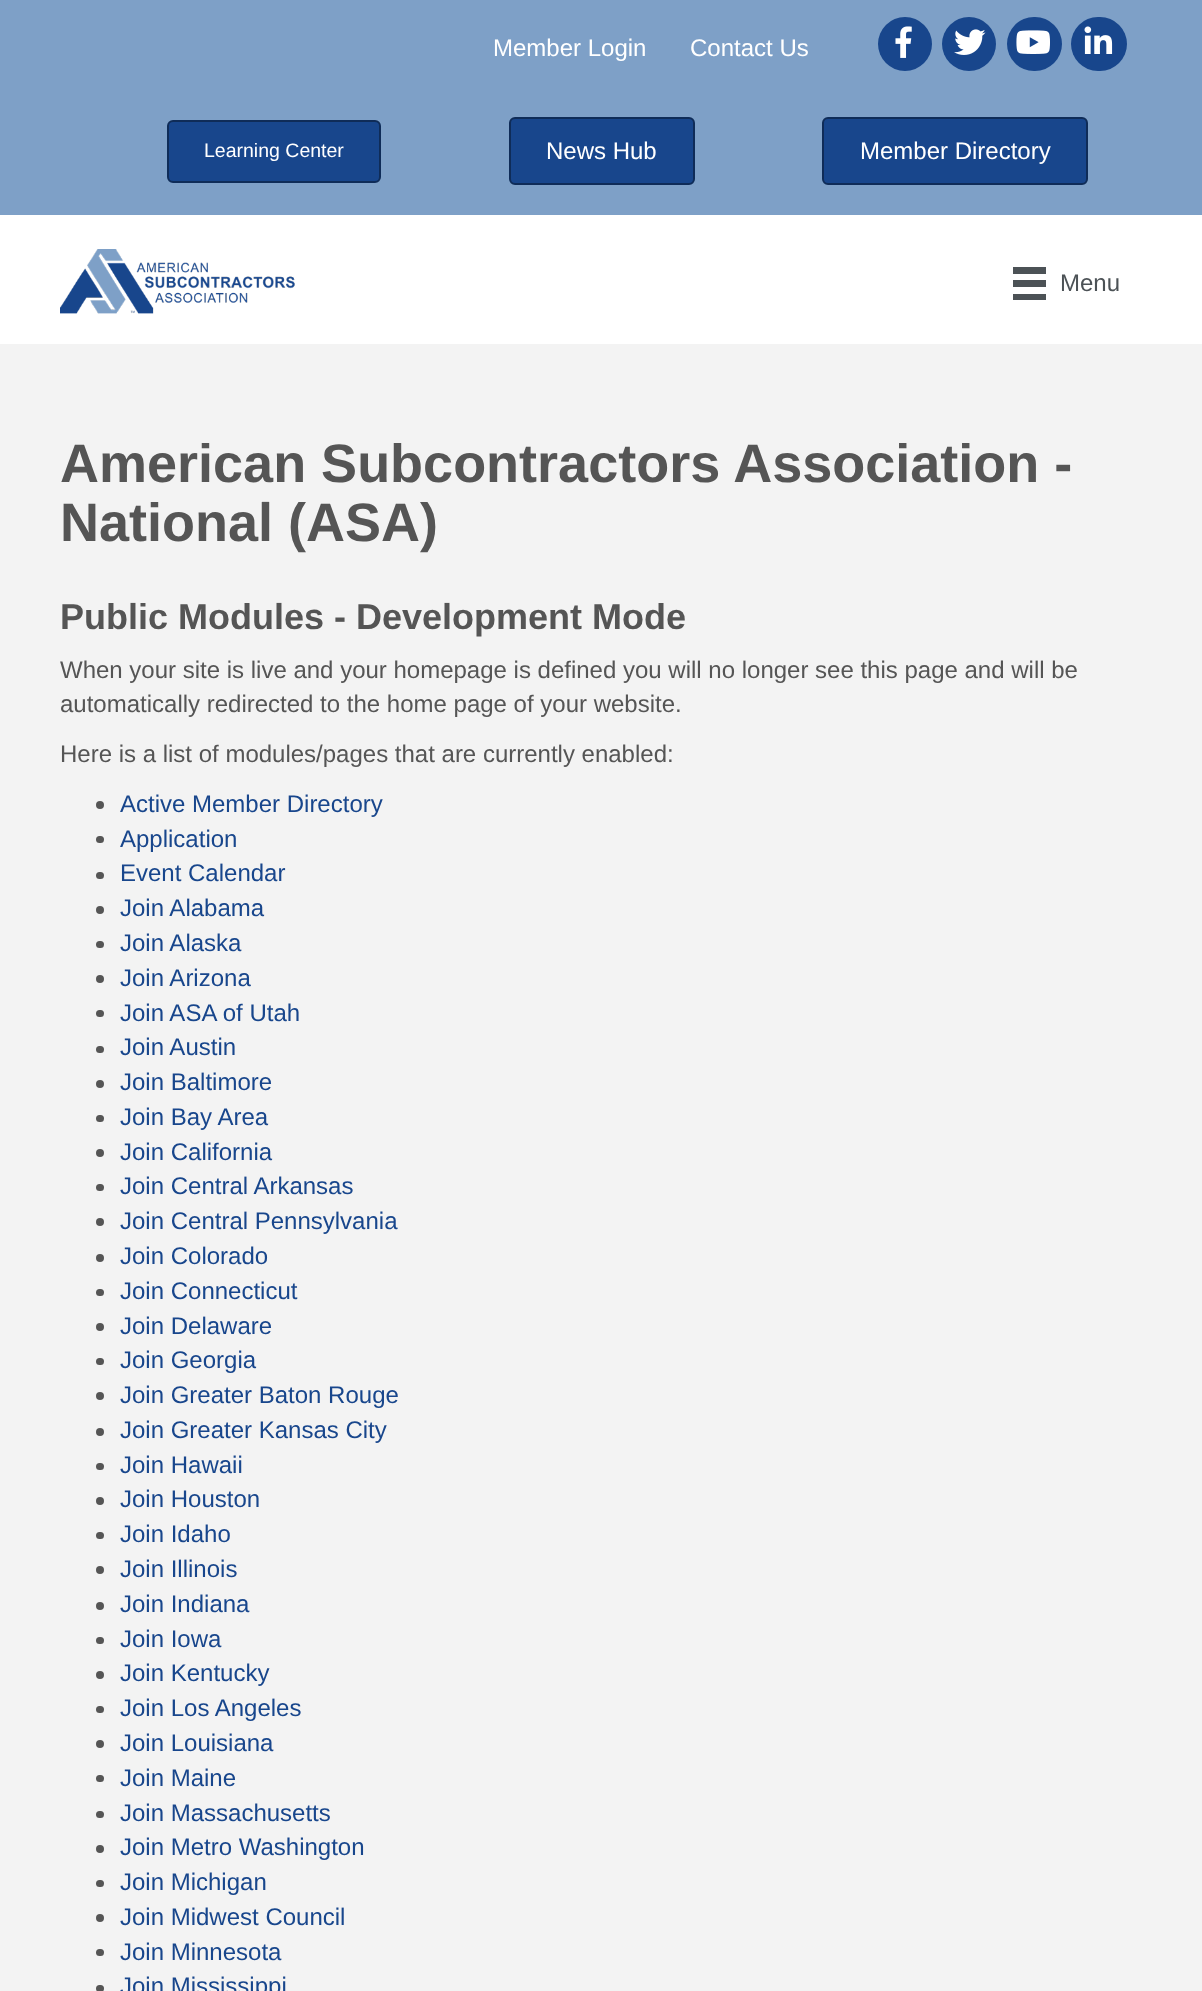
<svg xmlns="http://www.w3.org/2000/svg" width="1202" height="1991">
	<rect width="100%" height="100%" fill="#7EA0C7" />
	<g font-family="Liberation Sans" font-size="24" fill="#FFFFFF">
		<text x="493" y="56">Member Login</text>
		<text x="690" y="56">Contact Us</text>
	</g>
	<circle cx="905" cy="44" r="27" fill="#18468C" />
	<image x="895" y="26" width="17" height="32" href="assets/img1.png" />
	<circle cx="969" cy="44" r="27" fill="#18468C" />
	<image x="954" y="29" width="32" height="26" href="assets/img2.png" />
	<rect x="1007" y="17" width="55" height="54" rx="27" fill="#18468C" />
	<image x="1016" y="30" width="34" height="24" href="assets/img3.png" />
	<rect x="1071" y="17" width="56" height="54" rx="27" fill="#18468C" />
	<image x="1084" y="26" width="29" height="28" href="assets/img4.png" />
	<rect x="168" y="121" width="212" height="61" rx="5" fill="#18468C" stroke="#0F2C58" stroke-width="2" />
	<text x="204" y="157" font-family="Liberation Sans" font-size="19.5" fill="#FFFFFF">Learning Center</text>
	<rect x="510" y="118" width="184" height="66" rx="5" fill="#18468C" stroke="#0F2C58" stroke-width="2" />
	<text x="546" y="159" font-family="Liberation Sans" font-size="24" fill="#FFFFFF">News Hub</text>
	<rect x="823" y="118" width="264" height="66" rx="5" fill="#18468C" stroke="#0F2C58" stroke-width="2" />
	<text x="860" y="159" font-family="Liberation Sans" font-size="24" fill="#FFFFFF">Member Directory</text>
	<rect x="0" y="215" width="1202" height="129" fill="#FFFFFF" />
	<image x="60" y="249" width="235" height="65" href="assets/img5.png" />
	<rect x="1013" y="267" width="33" height="7" fill="#4C5256" />
	<rect x="1013" y="280" width="33" height="7" fill="#4C5256" />
	<rect x="1013" y="294" width="33" height="6" fill="#4C5256" />
	<text x="1060" y="291" font-family="Liberation Sans" font-size="24" fill="#4C5256">Menu</text>
	<rect x="0" y="344" width="1202" height="1647" fill="#F3F3F3" />
	<g font-family="Liberation Sans" font-size="54" font-weight="700" fill="#555555">
		<text x="60" y="482">American Subcontractors Association -</text>
		<text x="60" y="541">National (ASA)</text>
	</g>
	<text x="60" y="629" font-family="Liberation Sans" font-size="36" font-weight="700" fill="#555555">Public Modules - Development Mode</text>
	<g font-family="Liberation Sans" font-size="24" fill="#555555">
		<text x="60" y="678">When your site is live and your homepage is defined you will no longer see this page and will be</text>
		<text x="60" y="712">automatically redirected to the home page of your website.</text>
		<text x="60" y="762">Here is a list of modules/pages that are currently enabled:</text>
	</g>
	<circle cx="100" cy="805" r="4" fill="#555555" />
	<text x="120" y="812" font-family="Liberation Sans" font-size="24" fill="#18468C">Active Member Directory</text>
	<rect x="96" y="836" width="8" height="7" rx="3.5" fill="#555555" />
	<text x="120" y="847" font-family="Liberation Sans" font-size="24" fill="#18468C">Application</text>
	<rect x="96" y="872" width="8" height="7" rx="3.5" fill="#555555" />
	<text x="120" y="881" font-family="Liberation Sans" font-size="24" fill="#18468C">Event Calendar</text>
	<circle cx="100" cy="910" r="4" fill="#555555" />
	<text x="120" y="916" font-family="Liberation Sans" font-size="24" fill="#18468C">Join Alabama</text>
	<rect x="96" y="941" width="8" height="7" rx="3.5" fill="#555555" />
	<text x="120" y="951" font-family="Liberation Sans" font-size="24" fill="#18468C">Join Alaska</text>
	<circle cx="100" cy="979" r="4" fill="#555555" />
	<text x="120" y="986" font-family="Liberation Sans" font-size="24" fill="#18468C">Join Arizona</text>
	<rect x="96" y="1010" width="8" height="7" rx="3.5" fill="#555555" />
	<text x="120" y="1021" font-family="Liberation Sans" font-size="24" fill="#18468C">Join ASA of Utah</text>
	<rect x="96" y="1046" width="8" height="7" rx="3.5" fill="#555555" />
	<text x="120" y="1055" font-family="Liberation Sans" font-size="24" fill="#18468C">Join Austin</text>
	<circle cx="100" cy="1084" r="4" fill="#555555" />
	<text x="120" y="1090" font-family="Liberation Sans" font-size="24" fill="#18468C">Join Baltimore</text>
	<rect x="96" y="1115" width="8" height="7" rx="3.5" fill="#555555" />
	<text x="120" y="1125" font-family="Liberation Sans" font-size="24" fill="#18468C">Join Bay Area</text>
	<circle cx="100" cy="1153" r="4" fill="#555555" />
	<text x="120" y="1160" font-family="Liberation Sans" font-size="24" fill="#18468C">Join California</text>
	<rect x="96" y="1184" width="8" height="7" rx="3.5" fill="#555555" />
	<text x="120" y="1194" font-family="Liberation Sans" font-size="24" fill="#18468C">Join Central Arkansas</text>
	<circle cx="100" cy="1222" r="4" fill="#555555" />
	<text x="120" y="1229" font-family="Liberation Sans" font-size="24" fill="#18468C">Join Central Pennsylvania</text>
	<circle cx="100" cy="1258" r="4" fill="#555555" />
	<text x="120" y="1264" font-family="Liberation Sans" font-size="24" fill="#18468C">Join Colorado</text>
	<rect x="96" y="1289" width="8" height="7" rx="3.5" fill="#555555" />
	<text x="120" y="1299" font-family="Liberation Sans" font-size="24" fill="#18468C">Join Connecticut</text>
	<circle cx="100" cy="1327" r="4" fill="#555555" />
	<text x="120" y="1334" font-family="Liberation Sans" font-size="24" fill="#18468C">Join Delaware</text>
	<rect x="96" y="1358" width="8" height="7" rx="3.5" fill="#555555" />
	<text x="120" y="1368" font-family="Liberation Sans" font-size="24" fill="#18468C">Join Georgia</text>
	<circle cx="100" cy="1396" r="4" fill="#555555" />
	<text x="120" y="1403" font-family="Liberation Sans" font-size="24" fill="#18468C">Join Greater Baton Rouge</text>
	<circle cx="100" cy="1432" r="4" fill="#555555" />
	<text x="120" y="1438" font-family="Liberation Sans" font-size="24" fill="#18468C">Join Greater Kansas City</text>
	<rect x="96" y="1463" width="8" height="7" rx="3.5" fill="#555555" />
	<text x="120" y="1473" font-family="Liberation Sans" font-size="24" fill="#18468C">Join Hawaii</text>
	<circle cx="100" cy="1501" r="4" fill="#555555" />
	<text x="120" y="1507" font-family="Liberation Sans" font-size="24" fill="#18468C">Join Houston</text>
	<rect x="96" y="1532" width="8" height="7" rx="3.5" fill="#555555" />
	<text x="120" y="1542" font-family="Liberation Sans" font-size="24" fill="#18468C">Join Idaho</text>
	<circle cx="100" cy="1570" r="4" fill="#555555" />
	<text x="120" y="1577" font-family="Liberation Sans" font-size="24" fill="#18468C">Join Illinois</text>
	<circle cx="100" cy="1606" r="4" fill="#555555" />
	<text x="120" y="1612" font-family="Liberation Sans" font-size="24" fill="#18468C">Join Indiana</text>
	<rect x="96" y="1637" width="8" height="7" rx="3.5" fill="#555555" />
	<text x="120" y="1647" font-family="Liberation Sans" font-size="24" fill="#18468C">Join Iowa</text>
	<circle cx="100" cy="1675" r="4" fill="#555555" />
	<text x="120" y="1681" font-family="Liberation Sans" font-size="24" fill="#18468C">Join Kentucky</text>
	<rect x="96" y="1706" width="8" height="7" rx="3.5" fill="#555555" />
	<text x="120" y="1716" font-family="Liberation Sans" font-size="24" fill="#18468C">Join Los Angeles</text>
	<circle cx="100" cy="1744" r="4" fill="#555555" />
	<text x="120" y="1751" font-family="Liberation Sans" font-size="24" fill="#18468C">Join Louisiana</text>
	<rect x="96" y="1775" width="8" height="7" rx="3.5" fill="#555555" />
	<text x="120" y="1786" font-family="Liberation Sans" font-size="24" fill="#18468C">Join Maine</text>
	<rect x="96" y="1811" width="8" height="7" rx="3.5" fill="#555555" />
	<text x="120" y="1821" font-family="Liberation Sans" font-size="24" fill="#18468C">Join Massachusetts</text>
	<circle cx="100" cy="1849" r="4" fill="#555555" />
	<text x="120" y="1855" font-family="Liberation Sans" font-size="24" fill="#18468C">Join Metro Washington</text>
	<rect x="96" y="1880" width="8" height="7" rx="3.5" fill="#555555" />
	<text x="120" y="1890" font-family="Liberation Sans" font-size="24" fill="#18468C">Join Michigan</text>
	<circle cx="100" cy="1918" r="4" fill="#555555" />
	<text x="120" y="1925" font-family="Liberation Sans" font-size="24" fill="#18468C">Join Midwest Council</text>
	<rect x="96" y="1949" width="8" height="7" rx="3.5" fill="#555555" />
	<text x="120" y="1960" font-family="Liberation Sans" font-size="24" fill="#18468C">Join Minnesota</text>
	<rect x="96" y="1985" width="8" height="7" rx="3.5" fill="#555555" />
	<text x="120" y="1994" font-family="Liberation Sans" font-size="24" fill="#18468C">Join Mississippi</text>
</svg>
